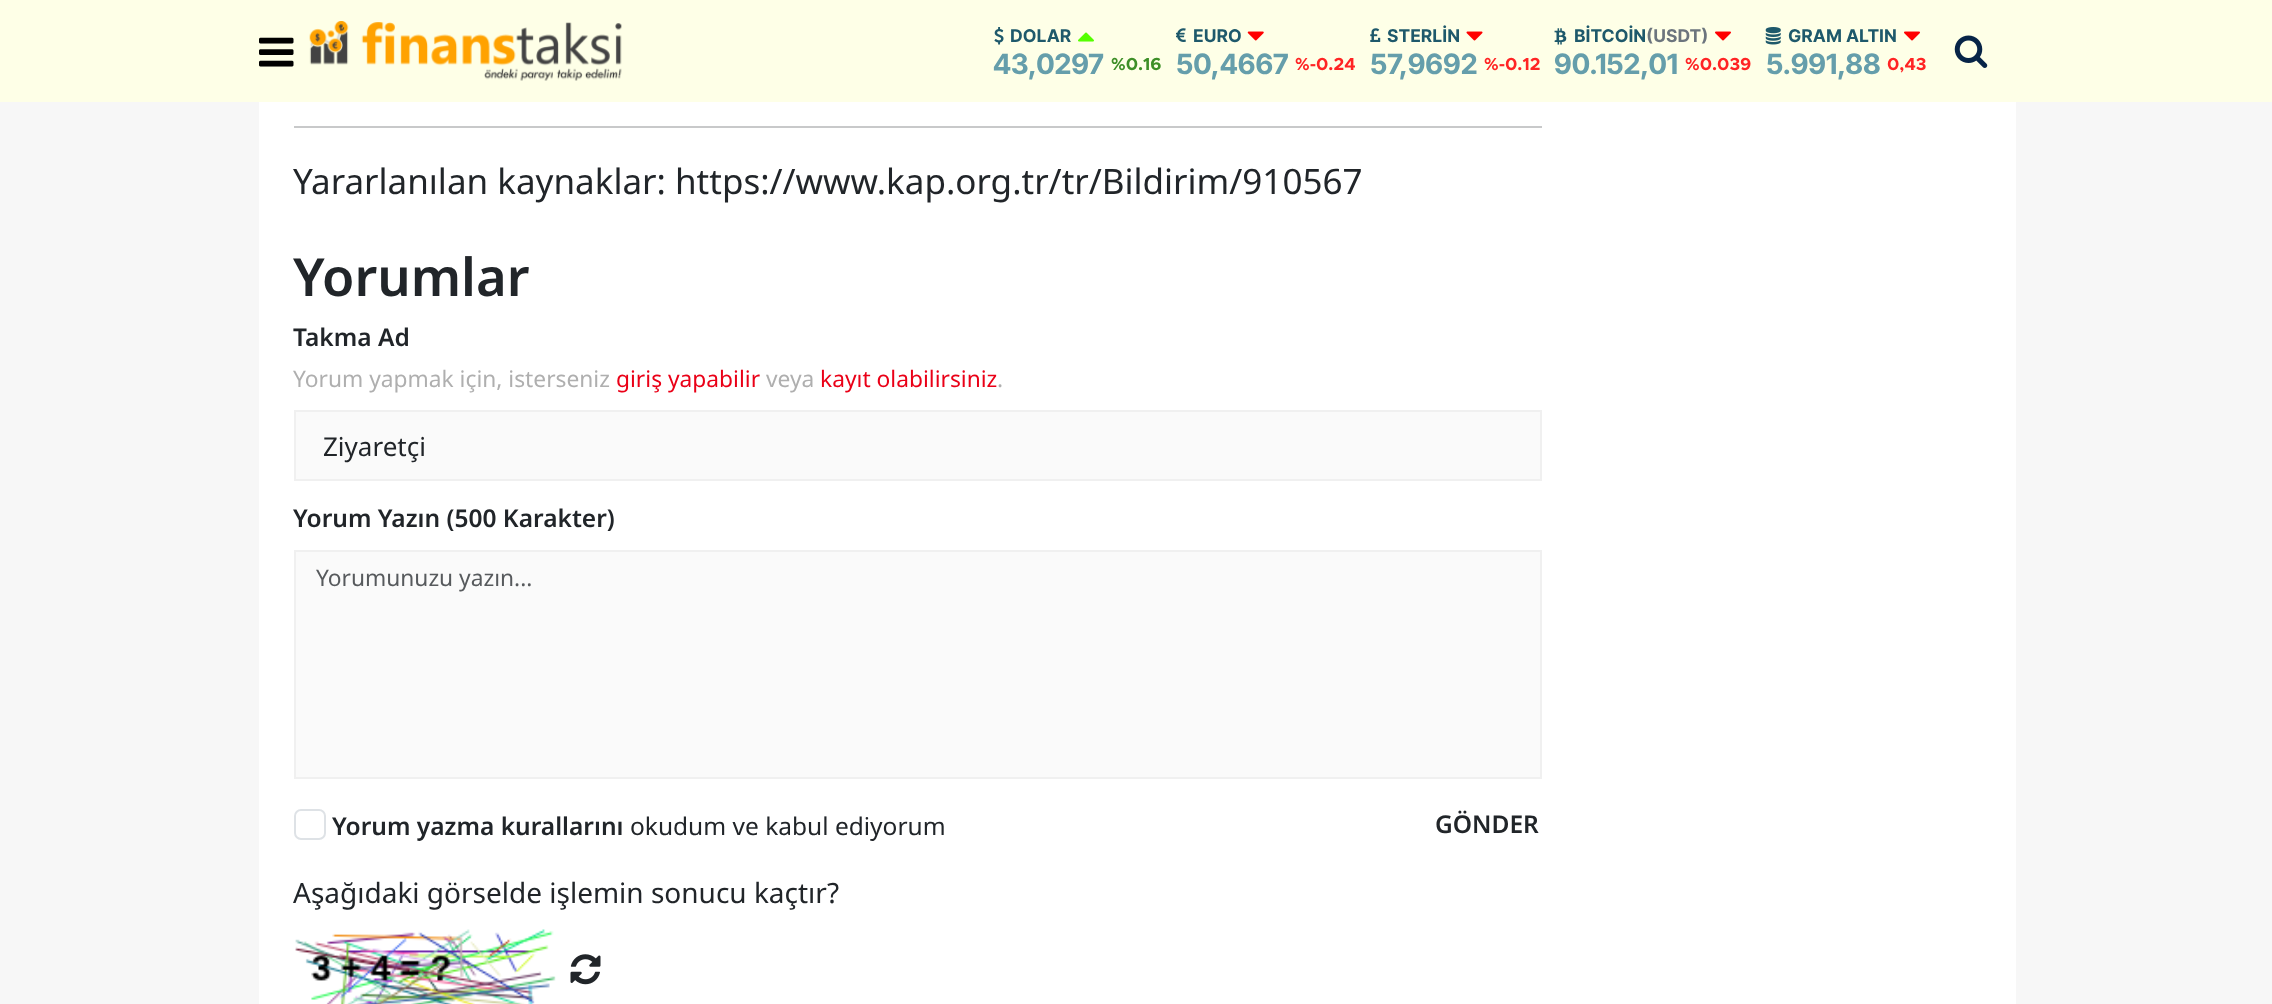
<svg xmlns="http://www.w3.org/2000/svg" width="2272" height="1004">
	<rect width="100%" height="100%" fill="#F7F7F7" />
	<rect x="0" y="0" width="2272" height="102" fill="#FEFFE7" />
	<image x="259" y="37" width="35" height="30" href="assets/img1.png" />
	<image x="309" y="21" width="313" height="60" href="assets/img2.png" />
	<image x="994" y="27" width="10" height="18" href="assets/img3.png" />
	<text x="1010" y="42" font-family="Inter" font-size="17.5" font-weight="700" fill="#1E596B">DOLAR</text>
	<image x="1078" y="32" width="16" height="10" href="assets/img4.png" />
	<text x="993" y="74" font-family="Inter Tight" font-size="28" font-weight="700" fill="#659EAB">43,0297</text>
	<text x="1111" y="70" font-family="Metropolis" font-size="17.5" font-weight="700" fill="#3D8F27">%0.16</text>
	<image x="1176" y="28" width="10" height="14" href="assets/img5.png" />
	<text x="1193" y="42" font-family="Inter" font-size="17.5" font-weight="700" fill="#1E596B">EURO</text>
	<image x="1247" y="31" width="17" height="10" href="assets/img6.png" />
	<text x="1176" y="74" font-family="Inter Tight" font-size="28" font-weight="700" fill="#659EAB">50,4667</text>
	<text x="1295" y="70" font-family="Metropolis" font-size="17.5" font-weight="700" fill="#FF2424">%-0.24</text>
	<image x="1370" y="28" width="11" height="14" href="assets/img7.png" />
	<text x="1387" y="42" font-family="Inter" font-size="17.5" font-weight="700" fill="#1E596B">STERLİN</text>
	<image x="1466" y="31" width="17" height="10" href="assets/img8.png" />
	<text x="1370" y="74" font-family="Inter Tight" font-size="28" font-weight="700" fill="#659EAB">57,9692</text>
	<text x="1484" y="70" font-family="Metropolis" font-size="17.5" font-weight="700" fill="#FF2424">%-0.12</text>
	<image x="1554" y="28" width="13" height="17" href="assets/img9.png" />
	<text x="1574" y="42" font-family="Inter" font-size="17.5" font-weight="700" fill="#1E596B">BİTCOİN</text>
	<text x="1646" y="42" font-family="Inter" font-size="17.5" font-weight="700" fill="#6C757D">(USDT)</text>
	<image x="1715" y="31" width="16" height="10" href="assets/img10.png" />
	<text x="1554" y="74" font-family="Inter Tight" font-size="28" font-weight="700" fill="#659EAB">90.152,01</text>
	<text x="1685" y="70" font-family="Metropolis" font-size="17.5" font-weight="700" fill="#FF2424">%0.039</text>
	<image x="1765" y="27" width="16" height="18" href="assets/img11.png" />
	<text x="1788" y="42" font-family="Inter" font-size="17.5" font-weight="700" fill="#1E596B">GRAM ALTIN</text>
	<image x="1904" y="31" width="16" height="10" href="assets/img10.png" />
	<text x="1766" y="74" font-family="Inter Tight" font-size="28" font-weight="700" fill="#659EAB">5.991,88</text>
	<text x="1887" y="70" font-family="Metropolis" font-size="17.5" font-weight="700" fill="#FF2424">0,43</text>
	<image x="1954" y="35" width="34" height="33" href="assets/img12.png" />
	<rect x="259" y="102" width="1757" height="902" fill="#FFFFFF" />
	<rect x="294" y="126" width="1248" height="2" fill="#C8C9CA" />
	<text x="293" y="194" font-family="Noto Sans" font-size="35" fill="#212529">Yararlanılan kaynaklar: https://www.kap.org.tr/tr/Bildirim/910567</text>
	<text x="293" y="296" font-family="Noto Sans" font-size="52.5" font-weight="600" fill="#212529">Yorumlar</text>
	<text x="293" y="346" font-family="Noto Sans" font-size="24.5" font-weight="600" fill="#212529">Takma Ad</text>
	<text x="293" y="387" font-family="Noto Sans" font-size="22.75" fill="#AFAFAF">Yorum yapmak için, isterseniz</text>
	<text x="616" y="387" font-family="Noto Sans" font-size="22.75" fill="#EA0017">giriş yapabilir</text>
	<text x="766" y="387" font-family="Noto Sans" font-size="22.75" fill="#AFAFAF">veya</text>
	<text x="820" y="387" font-family="Noto Sans" font-size="22.75" fill="#EA0017">kayıt olabilirsiniz</text>
	<text x="997" y="387" font-family="Noto Sans" font-size="22.75" fill="#AFAFAF">.</text>
	<rect x="295" y="411" width="1246" height="69" fill="#FAFAFA" stroke="#F0F0F0" stroke-width="2" />
	<text x="323" y="456" font-family="Noto Sans" font-size="26" fill="#212529">Ziyaretçi</text>
	<text x="293" y="527" font-family="Noto Sans" font-size="24.5" font-weight="600" fill="#212529">Yorum Yazın (500 Karakter)</text>
	<rect x="295" y="551" width="1246" height="227" fill="#FAFAFA" stroke="#F0F0F0" stroke-width="2" />
	<text x="316" y="586" font-family="Noto Sans" font-size="22.75" fill="#575A5D">Yorumunuzu yazın...</text>
	<rect x="295" y="810" width="30" height="29" rx="6" fill="none" stroke="#DEE2E6" stroke-width="2" />
	<text x="332" y="835" font-family="Noto Sans" font-size="24.5" font-weight="600" fill="#212529">Yorum yazma kurallarını</text>
	<text x="630" y="835" font-family="Noto Sans" font-size="24.5" fill="#212529">okudum ve kabul ediyorum</text>
	<text x="1435" y="833" font-family="Noto Sans" font-size="24.5" font-weight="600" fill="#212529">GÖNDER</text>
	<text x="293" y="903" font-family="Noto Sans" font-size="28" fill="#212529">Aşağıdaki görselde işlemin sonucu kaçtır?</text>
	<image x="295" y="929" width="261" height="75" href="assets/img13.png" />
	<image x="570" y="954" width="31" height="31" href="assets/img14.png" />
</svg>
